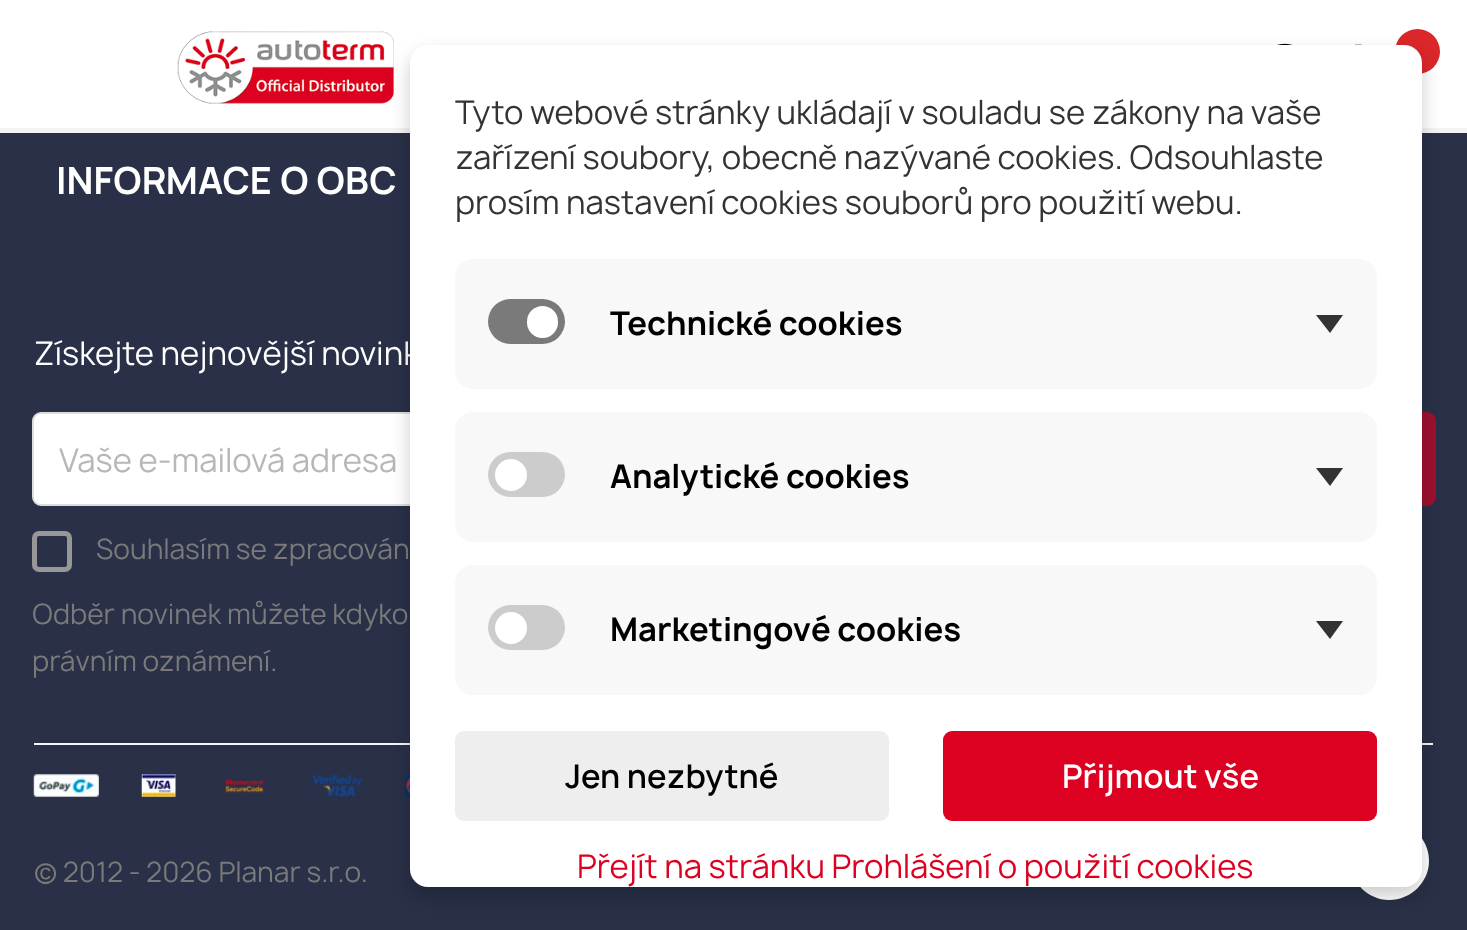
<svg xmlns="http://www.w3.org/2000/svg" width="1467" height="930">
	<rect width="100%" height="100%" fill="#293047" />
	<rect x="0" y="0" width="1467" height="128" fill="#FFFFFF" />
	<rect x="0" y="128" width="1467" height="5" fill="#F3F3F3" />
	<image x="177" y="31" width="217" height="73" href="assets/img1.png" />
	<image x="1277" y="43" width="16" height="2" href="assets/img2.png" />
	<image x="1355" y="44" width="7" height="1" href="assets/img3.png" />
	<circle cx="1417.5" cy="51.5" r="22.5" fill="#DA2729" />
	<text x="56" y="194" font-family="Manrope" font-size="36" font-weight="700" fill="#FFFFFF">INFORMACE O OBC</text>
	<rect x="34" y="743" width="1399" height="2" fill="#F6F6F6" />
	<text x="34" y="365" font-family="Manrope" font-size="31.5" fill="#FFFFFF">Získejte nejnovější novink</text>
	<rect x="33" y="413" width="1129" height="92" rx="8" fill="#FFFFFF" stroke="#DDDDDD" stroke-width="2" />
	<text x="59" y="472" font-family="Manrope" font-size="31.5" fill="#B7B7B7">Vaše e-mailová adresa</text>
	<rect x="1181" y="412" width="255" height="94" rx="9" fill="#9D112E" />
	<rect x="34.5" y="533.5" width="35" height="36" rx="4.5" fill="none" stroke="#979797" stroke-width="5" />
	<g font-family="Manrope" font-size="27" fill="#7A7A7A">
		<text x="96" y="559">Souhlasím se zpracován</text>
		<text x="32" y="624">Odběr novinek můžete kdyko</text>
		<text x="32" y="671">právním oznámení.</text>
	</g>
	<image x="33" y="774" width="66" height="23" href="assets/img4.png" />
	<image x="141" y="774" width="35" height="23" href="assets/img5.png" />
	<image x="225" y="778" width="39" height="15" href="assets/img6.png" />
	<image x="312" y="774" width="51" height="23" href="assets/img7.png" />
	<image x="405" y="774" width="5" height="23" href="assets/img8.png" />
	<text x="34" y="882" font-family="Manrope" font-size="27" fill="#7A7A7A">© 2012 - 2026 Planar s.r.o.</text>
	<path d="M1350 861C1350 839 1368 821 1389 821C1411 821 1429 839 1429 861C1429 882 1411 900 1389 900C1368 900 1350 882 1350 861Z" fill="#FFFFFF" />
	<rect x="410" y="54" width="1012" height="842" rx="18" fill="#000000" fill-opacity="0.2" filter="blur(9px)" />
	<rect x="410" y="45" width="1012" height="842" rx="18" fill="#FFFFFF" />
	<g font-family="Manrope" font-size="31.5" fill="#333333">
		<text x="455" y="124">Tyto webové stránky ukládají v souladu se zákony na vaše</text>
		<text x="455" y="169">zařízení soubory, obecně nazývané cookies. Odsouhlaste</text>
		<text x="455" y="214">prosím nastavení cookies souborů pro použití webu.</text>
	</g>
	<rect x="455" y="259" width="922" height="130" rx="18" fill="#F8F8F8" />
	<rect x="488" y="299" width="77" height="45" rx="22.5" fill="#7A7A7A" />
	<rect x="527" y="306" width="31" height="32" rx="15.5" fill="#FFFFFF" />
	<text x="610" y="335" font-family="Manrope" font-size="31.5" font-weight="700" fill="#000000">Technické cookies</text>
	<path d="M1316 315H1343L1330 333Z" fill="#333333" />
	<rect x="455" y="412" width="922" height="130" rx="18" fill="#F8F8F8" />
	<rect x="488" y="452" width="77" height="45" rx="22.5" fill="#CCCCCC" />
	<circle cx="511" cy="475" r="16" fill="#FFFFFF" />
	<text x="610" y="488" font-family="Manrope" font-size="31.5" font-weight="700" fill="#000000">Analytické cookies</text>
	<path d="M1316 468H1343L1330 486Z" fill="#333333" />
	<rect x="455" y="565" width="922" height="130" rx="18" fill="#F8F8F8" />
	<rect x="488" y="605" width="77" height="45" rx="22.5" fill="#CCCCCC" />
	<circle cx="511" cy="628" r="16" fill="#FFFFFF" />
	<text x="610" y="641" font-family="Manrope" font-size="31.5" font-weight="700" fill="#000000">Marketingové cookies</text>
	<path d="M1316 621H1343L1330 639Z" fill="#333333" />
	<rect x="455" y="731" width="434" height="90" rx="9" fill="#EEEEEE" />
	<text x="565" y="788" font-family="Manrope" font-size="31.5" font-weight="600" fill="#000000">Jen nezbytné</text>
	<rect x="943" y="731" width="434" height="90" rx="9" fill="#DC0021" />
	<text x="1062" y="788" font-family="Manrope" font-size="31.5" font-weight="600" fill="#FFFFFF">Přijmout vše</text>
	<text x="577" y="878" font-family="Manrope" font-size="31.5" fill="#DC0021">Přejít na stránku Prohlášení o použití cookies</text>
</svg>
